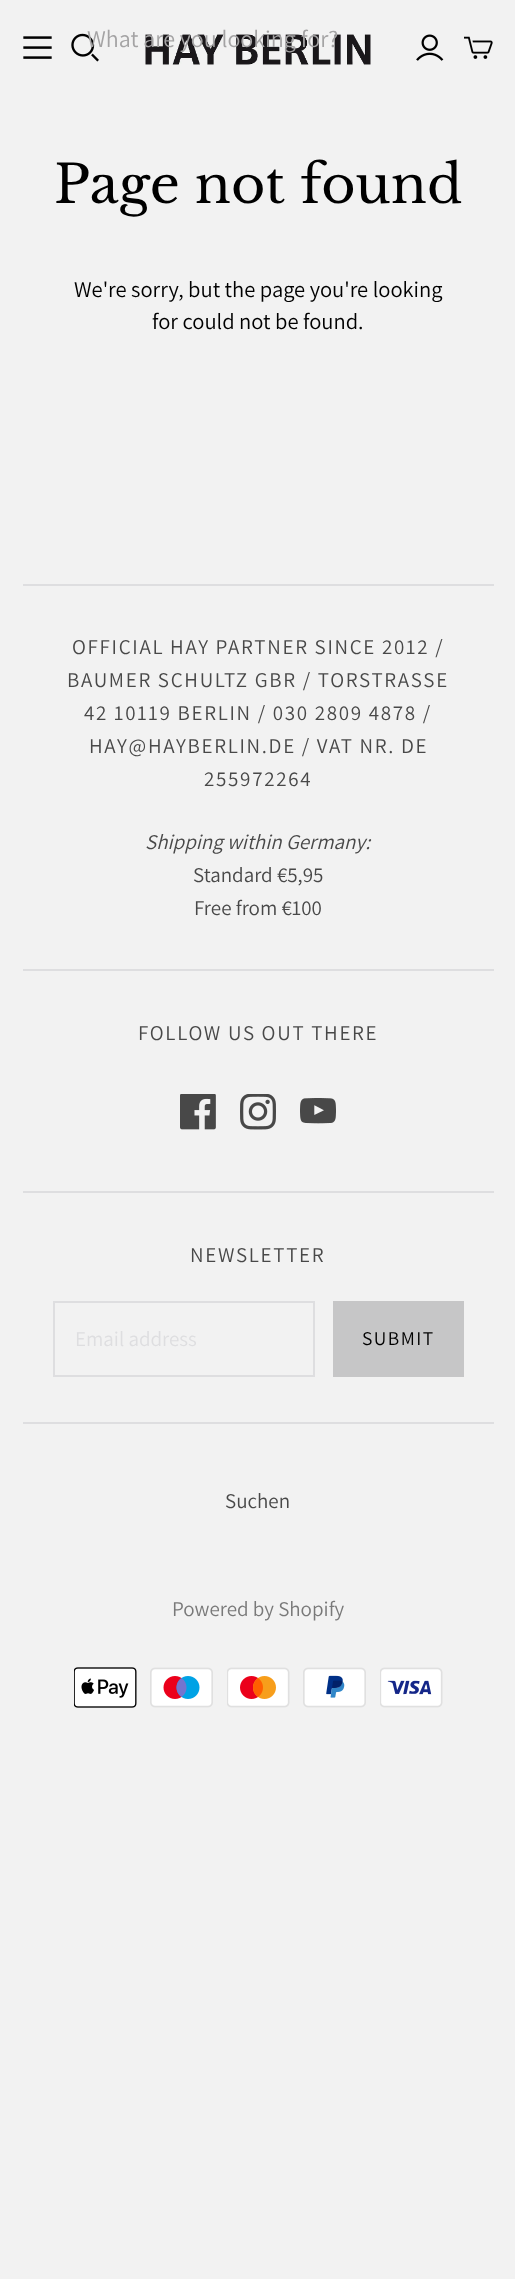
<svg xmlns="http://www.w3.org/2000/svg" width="515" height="2279">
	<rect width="100%" height="100%" fill="#F2F2F2" />
	<image x="23" y="36" width="29" height="23" href="assets/img1.png" />
	<image x="71" y="33" width="28" height="29" href="assets/img2.png" />
	<image x="145" y="34" width="226" height="31" href="assets/img5.png" />
	<text x="87" y="47" font-family="Assistant" font-size="24" fill="#A4A3A4">What are you looking for?</text>
	<image x="416" y="34" width="28" height="27" href="assets/img3.png" />
	<image x="464" y="36" width="29" height="23" href="assets/img4.png" />
	<text x="54" y="203" font-family="Libre Baskerville" font-size="52.5" fill="#000000">Page not found</text>
	<g font-family="Assistant" font-size="22.5" fill="#000000">
		<text x="74" y="297">We're sorry, but the page you're looking</text>
		<text x="152" y="329">for could not be found.</text>
	</g>
	<rect x="23" y="584" width="471" height="2" fill="#DEDEE0" />
	<rect x="23" y="1422" width="471" height="2" fill="#DEDEE0" />
	<g font-family="Assistant" font-size="21" letter-spacing="1.7" fill="#484848">
		<text x="72" y="654">OFFICIAL HAY PARTNER SINCE 2012 /</text>
		<text x="67" y="687">BAUMER SCHULTZ GBR / TORSTRASSE</text>
		<text x="84" y="720">42 10119 BERLIN / 030 2809 4878 /</text>
		<text x="89" y="753">HAY@HAYBERLIN.DE / VAT NR. DE</text>
		<text x="204" y="786">255972264</text>
	</g>
	<text x="145" y="849" font-family="Assistant" font-size="21" font-style="italic" fill="#484848">Shipping within Germany:</text>
	<g font-family="Assistant" font-size="21" fill="#484848">
		<text x="193" y="882">Standard €5,95</text>
		<text x="194" y="915">Free from €100</text>
	</g>
	<rect x="23" y="969" width="471" height="2" fill="#DEDEE0" />
	<text x="138" y="1040" font-family="Assistant" font-size="21" letter-spacing="1.7" fill="#484848">FOLLOW US OUT THERE</text>
	<image x="180" y="1094" width="36" height="36" href="assets/img6.png" />
	<image x="240" y="1094" width="36" height="36" href="assets/img7.png" />
	<image x="300" y="1098" width="36" height="26" href="assets/img8.png" />
	<rect x="23" y="1191" width="471" height="2" fill="#DEDEE0" />
	<text x="190" y="1262" font-family="Assistant" font-size="21" letter-spacing="1.7" fill="#484848">NEWSLETTER</text>
	<rect x="54" y="1302" width="260" height="74" fill="none" stroke="#DEDEE0" stroke-width="2" />
	<text x="75" y="1346" font-family="Assistant" font-size="21" fill="#DEDEE0">Email address</text>
	<rect x="333" y="1301" width="131" height="76" fill="#C6C6C7" />
	<text x="362" y="1345" font-family="Assistant" font-size="19.5" letter-spacing="1.5" fill="#000000">SUBMIT</text>
	<text x="225" y="1508" font-family="Assistant" font-size="21" fill="#484848">Suchen</text>
	<text x="172" y="1616" font-family="Assistant" font-size="21" fill="#797979">Powered by Shopify</text>
	<image x="74" y="1667" width="63" height="41" href="assets/img9.png" />
	<image x="150" y="1667" width="63" height="41" href="assets/img10.png" />
	<image x="227" y="1667" width="63" height="41" href="assets/img11.png" />
	<image x="303" y="1667" width="63" height="41" href="assets/img12.png" />
	<image x="380" y="1667" width="63" height="41" href="assets/img13.png" />
</svg>
